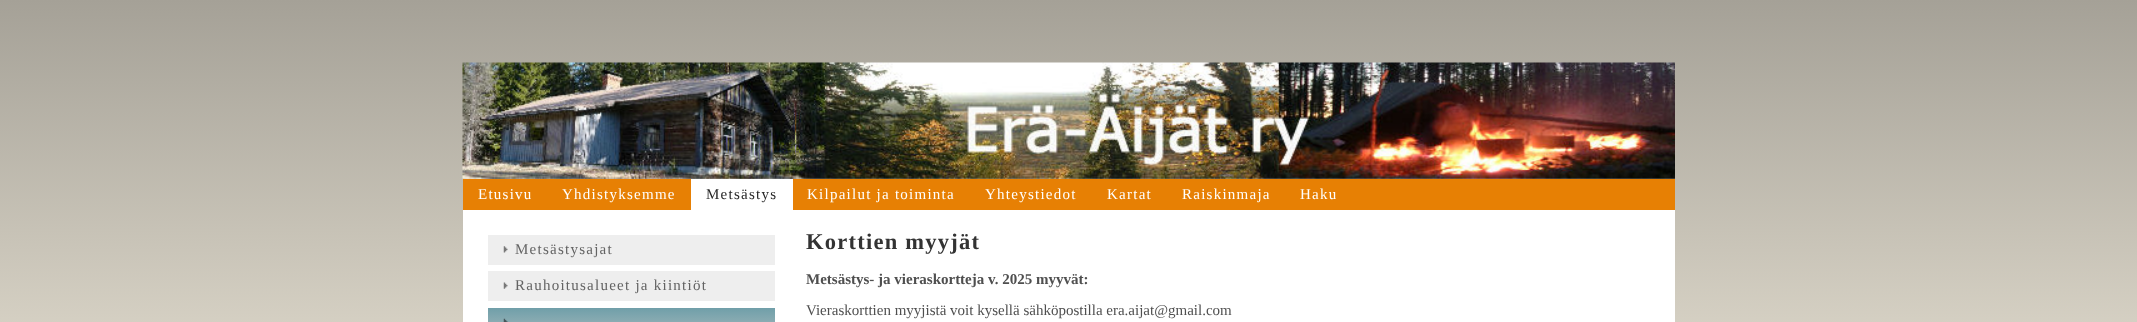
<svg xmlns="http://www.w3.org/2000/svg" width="2137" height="322">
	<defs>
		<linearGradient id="g1" gradientUnits="userSpaceOnUse" x1="1069" y1="0" x2="1069" y2="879"><stop offset="0" stop-color="#A5A197" /><stop offset="0.64" stop-color="#F8F2E3" /><stop offset="1" stop-color="#F8F2E3" /></linearGradient>
		<linearGradient id="g2" gradientUnits="userSpaceOnUse" x1="631" y1="308" x2="631" y2="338"><stop offset="0" stop-color="#709FA9" /><stop offset="0.87" stop-color="#A0B6BA" /><stop offset="1" stop-color="#A0B6BA" /></linearGradient>
	</defs>
	<rect width="100%" height="100%" fill="#FFFFFF" />
	<rect x="0" y="0" width="2137" height="322" fill="url(#g1)" />
	<image x="462" y="62" width="1213" height="117" href="assets/img1.png" />
	<rect x="463" y="179" width="1212" height="31" fill="#E78004" />
	<g font-family="Liberation Serif" font-size="15" letter-spacing="1.25" fill="#FFFFFF">
		<text x="478" y="199">Etusivu</text>
		<text x="562" y="199">Yhdistyksemme</text>
	</g>
	<rect x="691" y="179" width="102" height="31" fill="#FFFFFF" />
	<text x="706" y="199" font-family="Liberation Serif" font-size="15" letter-spacing="1.25" fill="#262626">Metsästys</text>
	<g font-family="Liberation Serif" font-size="15" letter-spacing="1.25" fill="#FFFFFF">
		<text x="807" y="199">Kilpailut ja toiminta</text>
		<text x="985" y="199">Yhteystiedot</text>
		<text x="1107" y="199">Kartat</text>
		<text x="1182" y="199">Raiskinmaja</text>
		<text x="1300" y="199">Haku</text>
	</g>
	<rect x="463" y="210" width="1212" height="112" fill="#FFFFFF" />
	<rect x="488" y="235" width="287" height="30" fill="#EEEEEE" />
	<image x="503" y="246" width="5" height="7" href="assets/img2.png" />
	<text x="515" y="254" font-family="Liberation Serif" font-size="15" letter-spacing="1.25" fill="#636363">Metsästysajat</text>
	<rect x="488" y="271" width="287" height="30" fill="#EEEEEE" />
	<image x="503" y="282" width="5" height="7" href="assets/img3.png" />
	<text x="515" y="290" font-family="Liberation Serif" font-size="15" letter-spacing="1.25" fill="#636363">Rauhoitusalueet ja kiintiöt</text>
	<rect x="488" y="308" width="287" height="14" fill="url(#g2)" />
	<image x="503" y="318" width="5" height="4" href="assets/img4.png" />
	<text x="806" y="249" font-family="Liberation Serif" font-size="22.5" font-weight="700" letter-spacing="1.25" fill="#333333">Korttien myyjät</text>
	<text x="806" y="284" font-family="Liberation Serif" font-size="15" font-weight="700" fill="#4F4F4F">Metsästys- ja vieraskortteja v. 2025 myyvät:</text>
	<text x="806" y="315" font-family="Liberation Serif" font-size="15" fill="#4F4F4F">Vieraskorttien myyjistä voit kysellä sähköpostilla era.aijat@gmail.com</text>
</svg>
